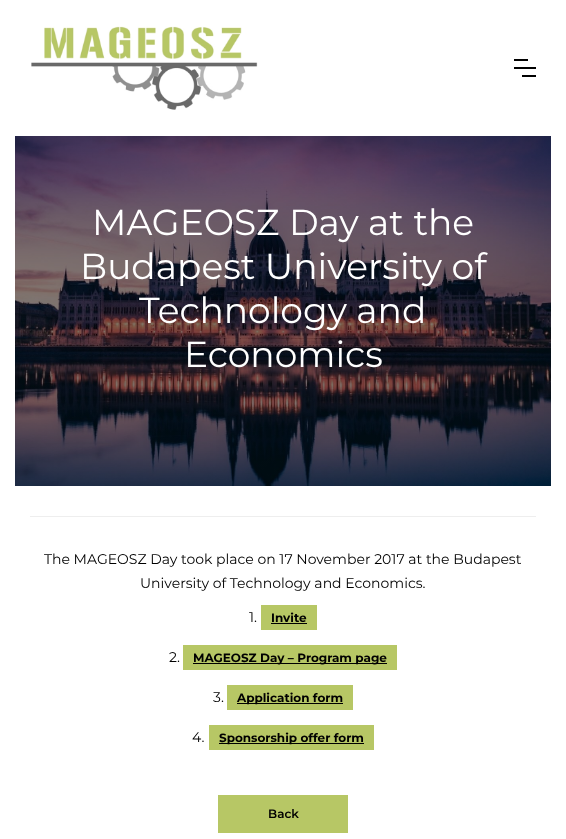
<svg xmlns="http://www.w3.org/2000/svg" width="566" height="839">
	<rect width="100%" height="100%" fill="#FFFFFF" />
	<image x="31" y="26" width="227" height="84" href="assets/img1.png" />
	<image x="514" y="59" width="22" height="18" href="assets/img2.png" />
	<image x="15" y="136" width="536" height="350" href="assets/img3.png" />
	<g font-family="Montserrat" font-size="36" fill="#FFFFFF">
		<text x="92" y="235">MAGEOSZ Day at the</text>
		<text x="80" y="279">Budapest University of</text>
		<text x="139" y="323">Technology and</text>
		<text x="184" y="367">Economics</text>
	</g>
	<rect x="30" y="516" width="506" height="1" fill="#EEEEEE" />
	<g font-family="Montserrat" font-size="14" fill="#000000">
		<text x="44" y="564">The MAGEOSZ Day took place on 17 November 2017 at the Budapest</text>
		<text x="140" y="588">University of Technology and Economics.</text>
		<text x="249" y="622">1.</text>
	</g>
	<rect x="261" y="605" width="56" height="25" fill="#B7C765" />
	<text x="271" y="622" font-family="Montserrat" font-size="12" font-weight="700" fill="#000000">Invite</text>
	<rect x="271" y="623" width="36" height="1" fill="#000000" />
	<text x="169" y="662" font-family="Montserrat" font-size="14" fill="#000000">2.</text>
	<rect x="183" y="645" width="214" height="25" fill="#B7C765" />
	<rect x="193" y="663" width="194" height="1" fill="#000000" />
	<text x="193" y="662" font-family="Montserrat" font-size="12" font-weight="700" fill="#000000">MAGEOSZ Day – Program page</text>
	<text x="213" y="702" font-family="Montserrat" font-size="14" fill="#000000">3.</text>
	<rect x="227" y="685" width="126" height="25" fill="#B7C765" />
	<rect x="237" y="703" width="106" height="1" fill="#000000" />
	<text x="237" y="702" font-family="Montserrat" font-size="12" font-weight="700" fill="#000000">Application form</text>
	<text x="192" y="742" font-family="Montserrat" font-size="14" fill="#000000">4.</text>
	<rect x="209" y="725" width="165" height="25" fill="#B7C765" />
	<rect x="219" y="743" width="145" height="1" fill="#000000" />
	<text x="219" y="742" font-family="Montserrat" font-size="12" font-weight="700" fill="#000000">Sponsorship offer form</text>
	<rect x="218" y="795" width="130" height="38" fill="#B7C765" />
	<text x="268" y="818" font-family="Montserrat" font-size="12" font-weight="600" fill="#000000">Back</text>
</svg>
